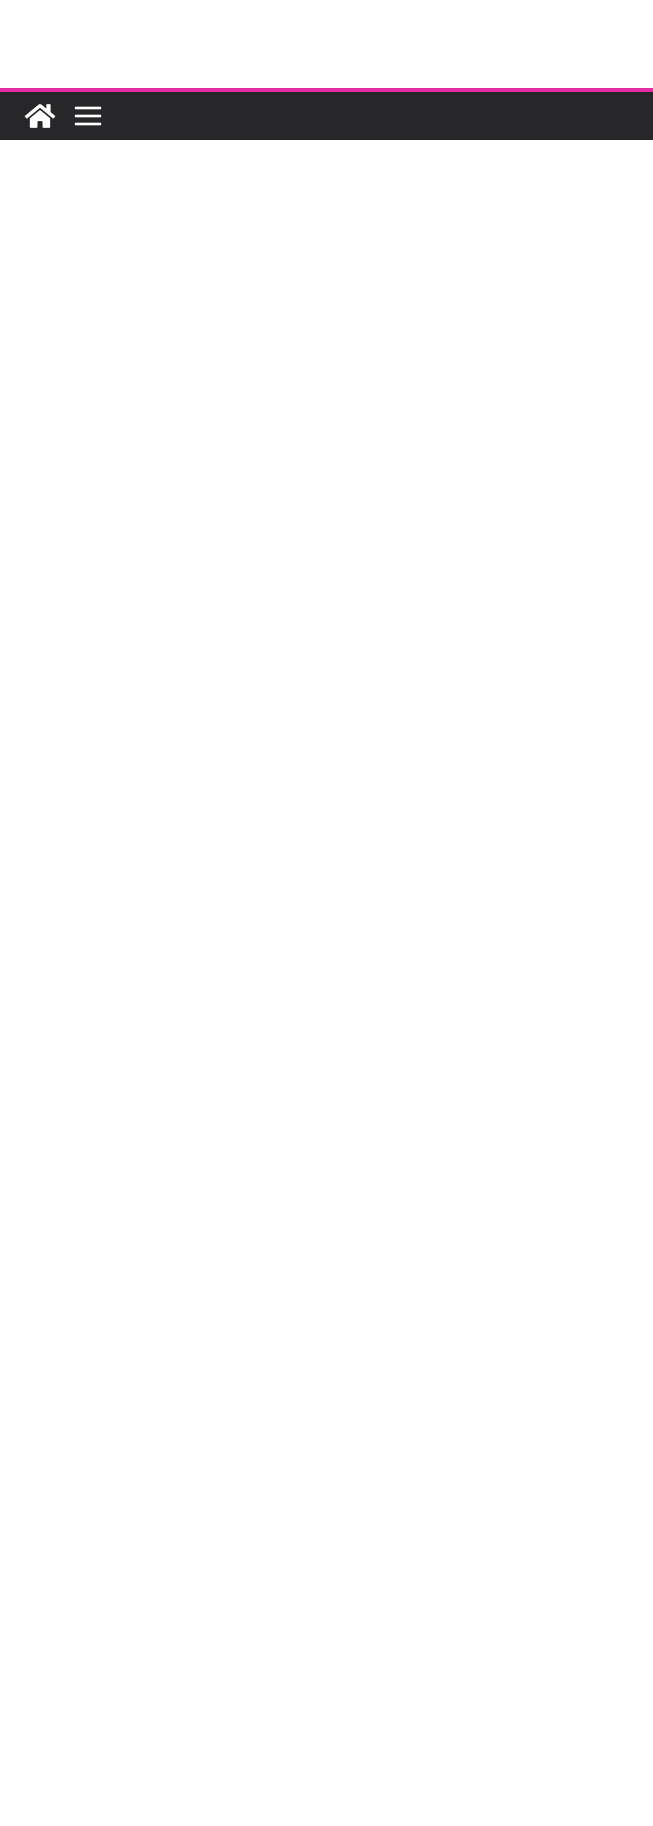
<svg xmlns="http://www.w3.org/2000/svg" width="653" height="1826">
	<rect width="100%" height="100%" fill="#FFFFFF" />
	<rect x="0" y="92" width="653" height="48" fill="#27272A" />
	<rect x="0" y="88" width="653" height="4" fill="#E52DA2" />
	<image x="24" y="104" width="32" height="24" href="assets/img1.png" />
	<image x="74" y="106" width="28" height="20" href="assets/img2.png" />
</svg>
